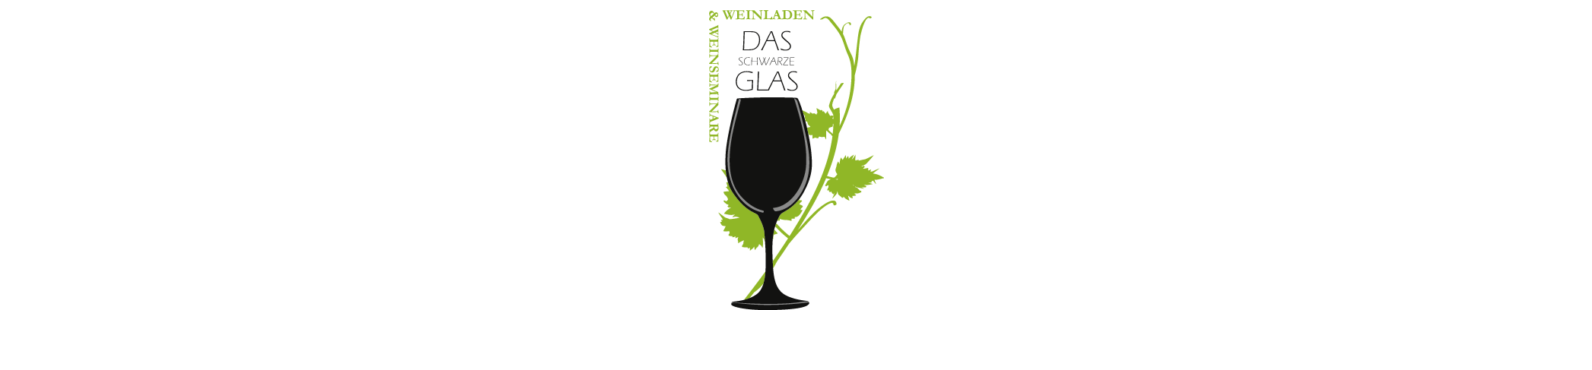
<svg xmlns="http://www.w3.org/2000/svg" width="1592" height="370">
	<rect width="100%" height="100%" fill="#FFFFFF" />
	<image x="709" y="10" width="175" height="300" href="assets/img1.png" />
</svg>
